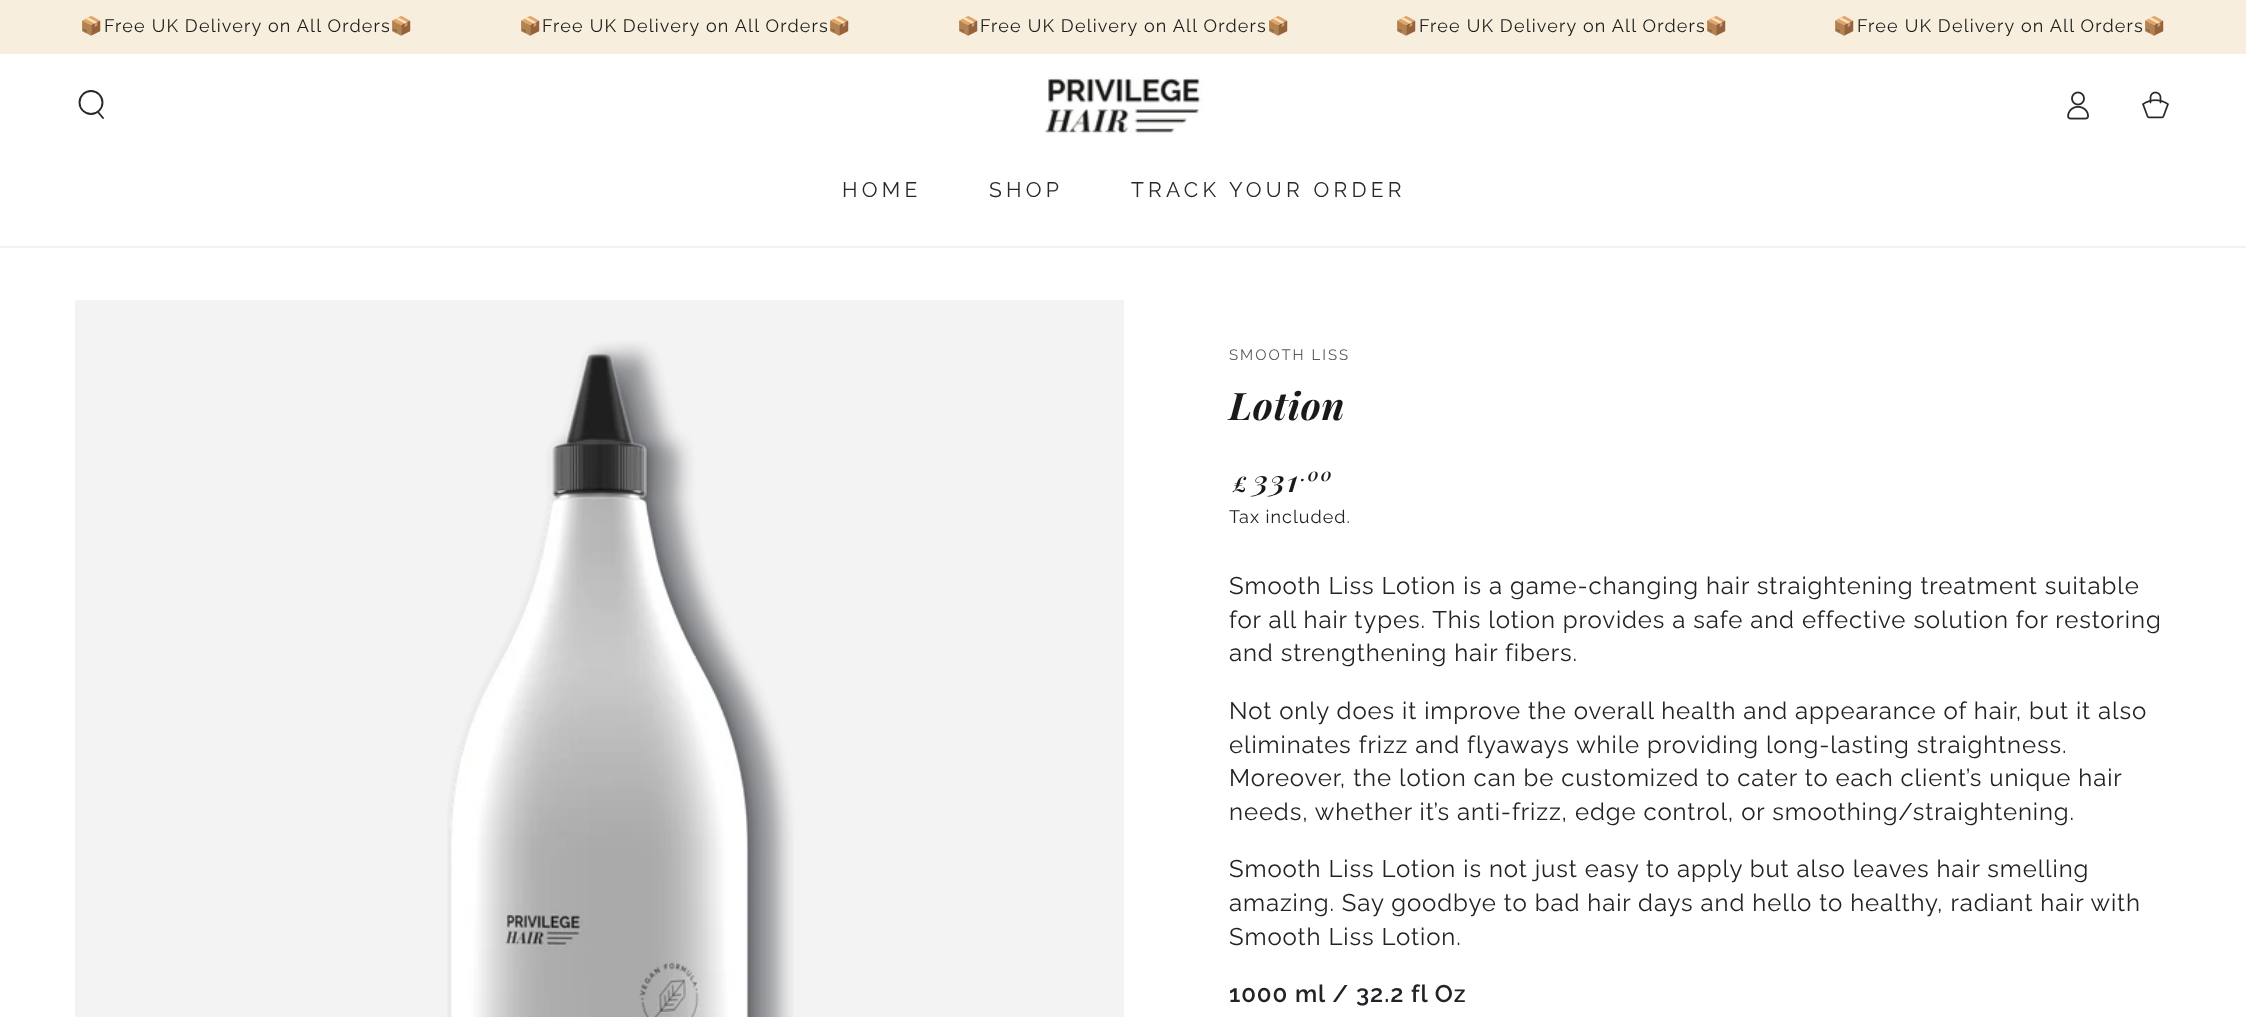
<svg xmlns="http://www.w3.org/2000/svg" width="2246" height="1017">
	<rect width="100%" height="100%" fill="#FFFFFF" />
	<rect x="0" y="0" width="2246" height="54" fill="#F7EEDD" />
	<text x="80" y="32" font-family="Noto Color Emoji" font-size="18" letter-spacing="1.2" fill="#1A1B18">📦</text>
	<text x="104" y="32" font-family="Raleway" font-size="18" letter-spacing="1.2" fill="#1A1B18">Free UK Delivery on All Orders</text>
	<g font-family="Noto Color Emoji" font-size="18" letter-spacing="1.2" fill="#1A1B18">
		<text x="390" y="32">📦</text>
		<text x="519" y="32">📦</text>
	</g>
	<text x="542" y="32" font-family="Raleway" font-size="18" letter-spacing="1.2" fill="#1A1B18">Free UK Delivery on All Orders</text>
	<g font-family="Noto Color Emoji" font-size="18" letter-spacing="1.2" fill="#1A1B18">
		<text x="828" y="32">📦</text>
		<text x="957" y="32">📦</text>
	</g>
	<text x="980" y="32" font-family="Raleway" font-size="18" letter-spacing="1.2" fill="#1A1B18">Free UK Delivery on All Orders</text>
	<g font-family="Noto Color Emoji" font-size="18" letter-spacing="1.2" fill="#1A1B18">
		<text x="1267" y="32">📦</text>
		<text x="1395" y="32">📦</text>
	</g>
	<text x="1419" y="32" font-family="Raleway" font-size="18" letter-spacing="1.2" fill="#1A1B18">Free UK Delivery on All Orders</text>
	<g font-family="Noto Color Emoji" font-size="18" letter-spacing="1.2" fill="#1A1B18">
		<text x="1705" y="32">📦</text>
		<text x="1833" y="32">📦</text>
	</g>
	<text x="1857" y="32" font-family="Raleway" font-size="18" letter-spacing="1.2" fill="#1A1B18">Free UK Delivery on All Orders</text>
	<text x="2143" y="32" font-family="Noto Color Emoji" font-size="18" letter-spacing="1.2" fill="#1A1B18">📦</text>
	<rect x="0" y="246" width="2246" height="2" fill="#F2F2F4" />
	<circle cx="91" cy="102.5" r="11.5" fill="none" stroke="#282828" stroke-width="1.9" />
	<path d="M98 112L103 118" fill="none" stroke="#282828" stroke-width="1.9" stroke-linecap="round" />
	<image x="1045" y="77" width="158" height="58" href="assets/img1.png" />
	<image x="2067" y="91" width="22" height="29" href="assets/img2.png" />
	<image x="2142" y="91" width="27" height="28" href="assets/img3.png" />
	<g font-family="Raleway" font-size="21" letter-spacing="4.25" fill="#282828">
		<text x="842" y="197">HOME</text>
		<text x="989" y="197">SHOP</text>
		<text x="1131" y="197">TRACK YOUR ORDER</text>
	</g>
	<rect x="75" y="300" width="1049" height="717" fill="#F3F3F3" />
	<image x="447" y="341" width="347" height="676" href="assets/img4.png" />
	<text x="1229" y="360" font-family="Raleway" font-size="15" letter-spacing="2" fill="#595A5C">SMOOTH LISS</text>
	<text x="1229" y="420" font-family="Playfair Display" font-size="38" font-weight="700" font-style="italic" letter-spacing="0.75" fill="#1A1B18">Lotion</text>
	<text x="1233" y="492" font-family="Playfair Display" font-size="21" font-weight="600" font-style="italic" letter-spacing="2" fill="#1A1B18">£</text>
	<text x="1253" y="492" font-family="Playfair Display" font-size="30" font-weight="600" font-style="italic" letter-spacing="2" fill="#1A1B18">331</text>
	<text x="1301" y="481" font-family="Playfair Display" font-size="18" font-weight="600" font-style="italic" letter-spacing="2" fill="#1A1B18">.00</text>
	<text x="1229" y="523" font-family="Raleway" font-size="18" letter-spacing="1" fill="#212326">Tax included.</text>
	<g font-family="Raleway" font-size="24" letter-spacing="0.9" fill="#212326">
		<text x="1229" y="594">Smooth Liss Lotion is a game-changing hair straightening treatment suitable</text>
		<text x="1229" y="628">for all hair types. This lotion provides a safe and effective solution for restoring</text>
		<text x="1229" y="661">and strengthening hair fibers.</text>
		<text x="1229" y="719">Not only does it improve the overall health and appearance of hair, but it also</text>
		<text x="1229" y="753">eliminates frizz and flyaways while providing long-lasting straightness.</text>
		<text x="1229" y="786">Moreover, the lotion can be customized to cater to each client’s unique hair</text>
		<text x="1229" y="820">needs, whether it’s anti-frizz, edge control, or smoothing/straightening.</text>
		<text x="1229" y="877">Smooth Liss Lotion is not just easy to apply but also leaves hair smelling</text>
		<text x="1229" y="911">amazing. Say goodbye to bad hair days and hello to healthy, radiant hair with</text>
		<text x="1229" y="945">Smooth Liss Lotion.</text>
	</g>
	<text x="1229" y="1002" font-family="Raleway" font-size="24" font-weight="600" letter-spacing="0.9" fill="#212326">1000 ml / 32.2 fl Oz</text>
</svg>
